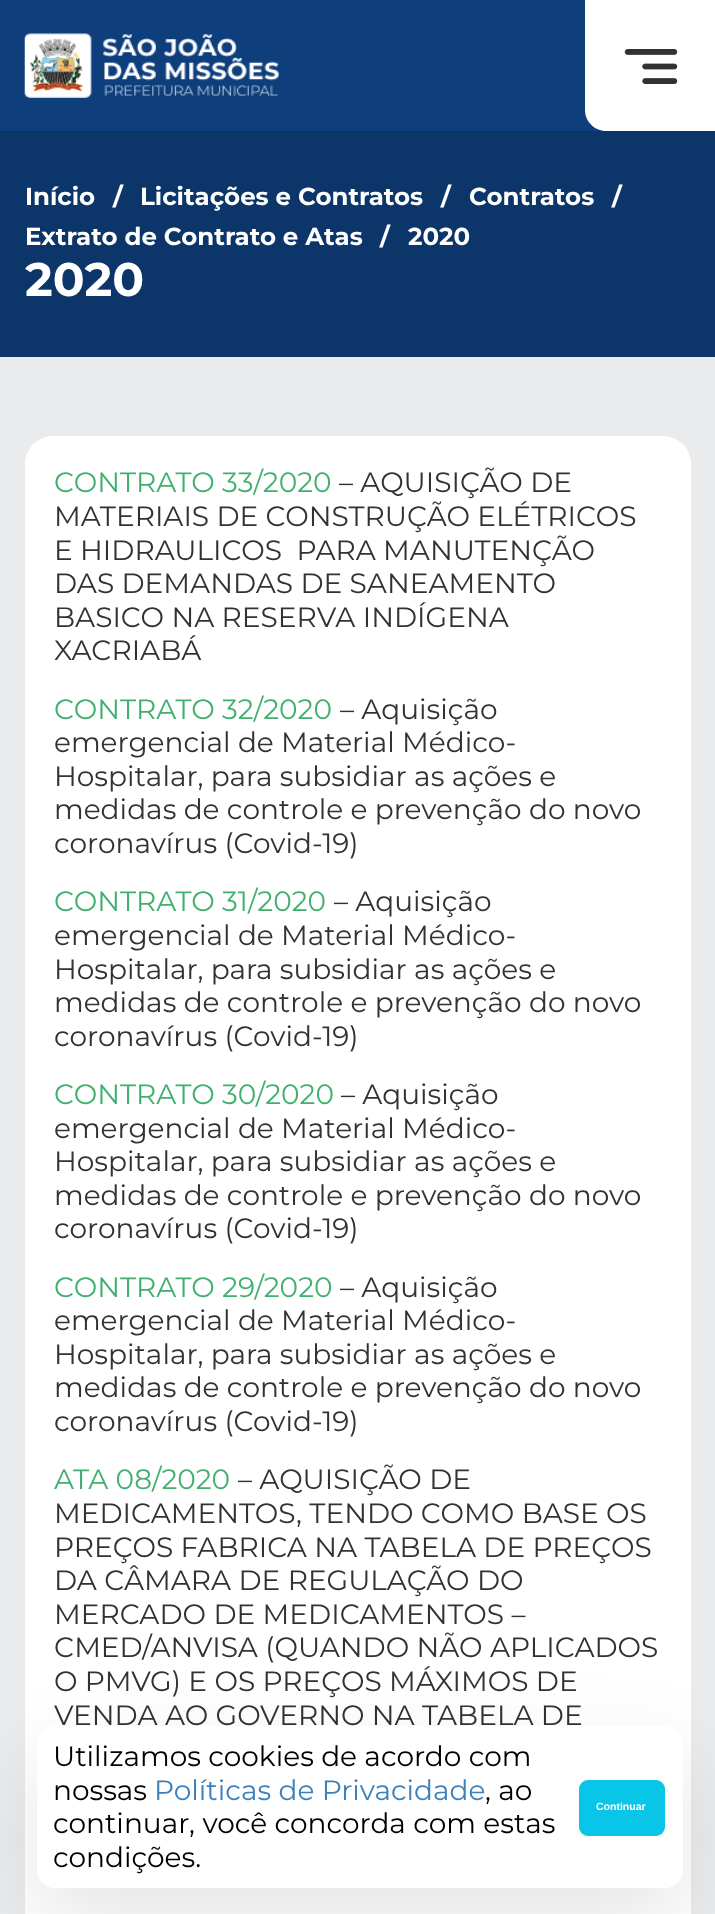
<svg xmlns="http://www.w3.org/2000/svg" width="715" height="1914">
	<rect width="100%" height="100%" fill="#EAEBED" />
	<rect x="0" y="0" width="606" height="131" fill="#0E3E7C" />
	<image x="24" y="33" width="255" height="65" href="assets/img1.png" />
	<path d="M585 0H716V131H606C594.5 131 585 121.5 585 110Z" fill="#FFFFFF" />
	<image x="624" y="49" width="54" height="35" href="assets/img2.png" />
	<rect x="0" y="131" width="715" height="226" fill="#0C356A" />
	<g font-family="Montserrat" font-size="24.5" font-weight="700" fill="#FFFFFF">
		<text x="25" y="205">Início</text>
		<text x="113" y="205">/</text>
		<text x="140" y="205">Licitações e Contratos</text>
		<text x="441" y="205">/</text>
		<text x="469" y="205">Contratos</text>
		<text x="612" y="205">/</text>
		<text x="25" y="245">Extrato de Contrato e Atas</text>
		<text x="380" y="245">/</text>
		<text x="408" y="245">2020</text>
	</g>
	<text x="25" y="296" font-family="Montserrat" font-size="47" font-weight="700" fill="#FFFFFF">2020</text>
	<rect x="25" y="436" width="666" height="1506" rx="28" fill="#FFFFFF" />
	<text x="54" y="492" font-family="Montserrat" font-size="28" fill="#41B06E">CONTRATO 33/2020</text>
	<g font-family="Montserrat" font-size="28" fill="#303234">
		<text x="339" y="492">– AQUISIÇÃO DE</text>
		<text x="54" y="526">MATERIAIS DE CONSTRUÇÃO ELÉTRICOS</text>
		<text x="54" y="560" xml:space="preserve">E HIDRAULICOS  PARA MANUTENÇÃO</text>
		<text x="54" y="593">DAS DEMANDAS DE SANEAMENTO</text>
		<text x="54" y="627">BASICO NA RESERVA INDÍGENA</text>
		<text x="54" y="660">XACRIABÁ</text>
	</g>
	<text x="54" y="719" font-family="Montserrat" font-size="28" fill="#41B06E">CONTRATO 32/2020</text>
	<g font-family="Montserrat" font-size="28" fill="#303234">
		<text x="340" y="719">– Aquisição</text>
		<text x="54" y="752">emergencial de Material Médico-</text>
		<text x="54" y="786">Hospitalar, para subsidiar as ações e</text>
		<text x="54" y="819">medidas de controle e prevenção do novo</text>
		<text x="54" y="853">coronavírus (Covid-19)</text>
	</g>
	<text x="54" y="911" font-family="Montserrat" font-size="28" fill="#41B06E">CONTRATO 31/2020</text>
	<g font-family="Montserrat" font-size="28" fill="#303234">
		<text x="334" y="911">– Aquisição</text>
		<text x="54" y="945">emergencial de Material Médico-</text>
		<text x="54" y="979">Hospitalar, para subsidiar as ações e</text>
		<text x="54" y="1012">medidas de controle e prevenção do novo</text>
		<text x="54" y="1046">coronavírus (Covid-19)</text>
	</g>
	<text x="54" y="1104" font-family="Montserrat" font-size="28" fill="#41B06E">CONTRATO 30/2020</text>
	<g font-family="Montserrat" font-size="28" fill="#303234">
		<text x="341" y="1104">– Aquisição</text>
		<text x="54" y="1138">emergencial de Material Médico-</text>
		<text x="54" y="1171">Hospitalar, para subsidiar as ações e</text>
		<text x="54" y="1205">medidas de controle e prevenção do novo</text>
		<text x="54" y="1238">coronavírus (Covid-19)</text>
	</g>
	<text x="54" y="1297" font-family="Montserrat" font-size="28" fill="#41B06E">CONTRATO 29/2020</text>
	<g font-family="Montserrat" font-size="28" fill="#303234">
		<text x="340" y="1297">– Aquisição</text>
		<text x="54" y="1330">emergencial de Material Médico-</text>
		<text x="54" y="1364">Hospitalar, para subsidiar as ações e</text>
		<text x="54" y="1397">medidas de controle e prevenção do novo</text>
		<text x="54" y="1431">coronavírus (Covid-19)</text>
	</g>
	<text x="54" y="1489" font-family="Montserrat" font-size="28" fill="#41B06E">ATA 08/2020</text>
	<g font-family="Montserrat" font-size="28" fill="#303234">
		<text x="238" y="1489">– AQUISIÇÃO DE</text>
		<text x="54" y="1523">MEDICAMENTOS, TENDO COMO BASE OS</text>
		<text x="54" y="1557">PREÇOS FABRICA NA TABELA DE PREÇOS</text>
		<text x="54" y="1590">DA CÂMARA DE REGULAÇÃO DO</text>
		<text x="54" y="1624">MERCADO DE MEDICAMENTOS –</text>
		<text x="54" y="1657">CMED/ANVISA (QUANDO NÃO APLICADOS</text>
		<text x="54" y="1691">O PMVG) E OS PREÇOS MÁXIMOS DE</text>
		<text x="54" y="1725">VENDA AO GOVERNO NA TABELA DE</text>
	</g>
	<rect x="37" y="1761" width="646" height="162" rx="18" fill="#000000" fill-opacity="0.1" filter="blur(44px)" />
	<rect x="37" y="1726" width="646" height="162" rx="18" fill="#FFFFFF" />
	<g font-family="Montserrat" font-size="28" fill="#000000">
		<text x="53" y="1766">Utilizamos cookies de acordo com</text>
		<text x="53" y="1800">nossas</text>
	</g>
	<text x="154" y="1800" font-family="Montserrat" font-size="28" fill="#3C80BC">Políticas de Privacidade</text>
	<g font-family="Montserrat" font-size="28" fill="#000000">
		<text x="485" y="1800">, ao</text>
		<text x="53" y="1833">continuar, você concorda com estas</text>
		<text x="53" y="1867">condições.</text>
	</g>
	<rect x="579" y="1780" width="86" height="56" rx="9" fill="#09C5E7" />
	<text x="596" y="1810" font-family="Liberation Sans" font-size="10.5" font-weight="700" fill="#FFFFFF">Continuar</text>
</svg>
